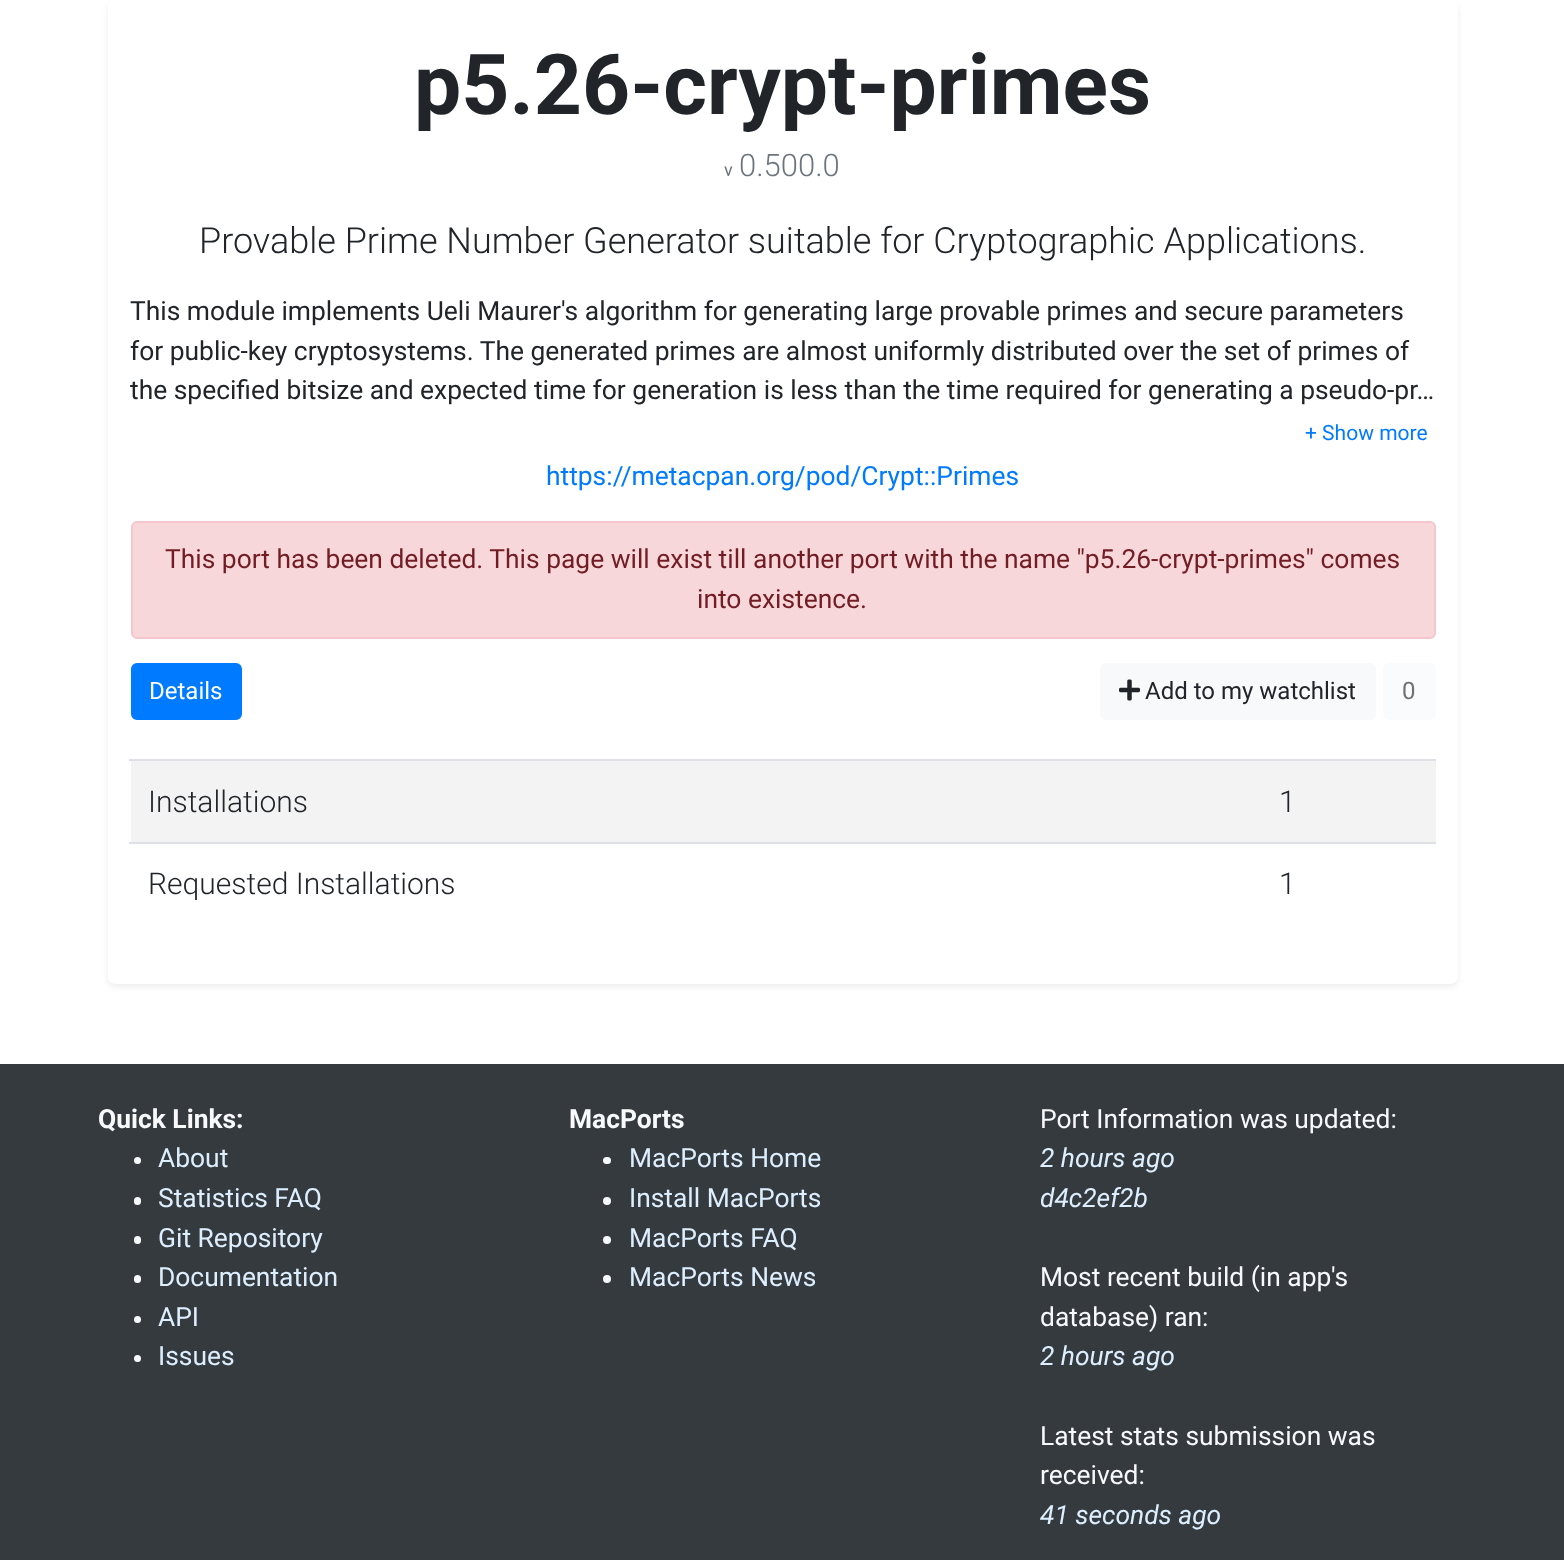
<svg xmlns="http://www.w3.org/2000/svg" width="1564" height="1560">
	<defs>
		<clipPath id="clip1"><path d="M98 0H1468V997H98ZM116 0H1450C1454.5 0 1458 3.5 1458 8V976C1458 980.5 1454.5 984 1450 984H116C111.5 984 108 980.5 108 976V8C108 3.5 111.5 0 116 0Z" clip-rule="evenodd" /></clipPath>
	</defs>
	<rect width="100%" height="100%" fill="#FFFFFF" />
	<g clip-path="url(#clip1)">
		<rect x="108" y="3" width="1350" height="984" rx="8" fill="#000000" fill-opacity="0.07" filter="blur(3px)" />
	</g>
	<text x="414" y="114" font-family="Roboto" font-size="84" font-weight="700" fill="#212529">p5.26-crypt-primes</text>
	<text x="724" y="176" font-family="Roboto" font-size="18" fill="#6C757D">v</text>
	<text x="739" y="176" font-family="Roboto" font-size="31" font-weight="300" fill="#6C757D">0.500.0</text>
	<text x="199" y="253" font-family="Roboto" font-size="36" font-weight="300" fill="#212529">Provable Prime Number Generator suitable for Cryptographic Applications.</text>
	<g font-family="Roboto" font-size="26.4" fill="#212529">
		<text x="130" y="320">This module implements Ueli Maurer's algorithm for generating large provable primes and secure parameters</text>
		<text x="130" y="360">for public-key cryptosystems. The generated primes are almost uniformly distributed over the set of primes of</text>
		<text x="130" y="399">the specified bitsize and expected time for generation is less than the time required for generating a pseudo-pr…</text>
	</g>
	<text x="1305" y="440" font-family="Roboto" font-size="21" fill="#007BFF">+ Show more</text>
	<text x="546" y="485" font-family="Roboto" font-size="26.4" fill="#007BFF">https://metacpan.org/pod/Crypt::Primes</text>
	<rect x="132" y="522" width="1303" height="116" rx="5" fill="#F8D7DA" stroke="#F5C6CB" stroke-width="2" />
	<g font-family="Roboto" font-size="26.4" fill="#721C24">
		<text x="165" y="568">This port has been deleted. This page will exist till another port with the name "p5.26-crypt-primes" comes</text>
		<text x="697" y="608">into existence.</text>
	</g>
	<rect x="132" y="664" width="109" height="55" rx="5" fill="#007BFF" stroke="#007BFF" stroke-width="2" />
	<text x="149" y="699" font-family="Roboto" font-size="24" fill="#FFFFFF">Details</text>
	<rect x="1100" y="663" width="276" height="57" rx="6" fill="#F8F9FA" />
	<image x="1119" y="679" width="21" height="22" href="assets/img1.png" />
	<text x="1145" y="699" font-family="Roboto" font-size="24" fill="#212529">Add to my watchlist</text>
	<rect x="1383" y="663" width="53" height="57" rx="6" fill="#FAFBFC" />
	<text x="1402" y="699" font-family="Roboto" font-size="24" fill="#6F7174">0</text>
	<rect x="131" y="761" width="1305" height="81" fill="#F3F3F3" />
	<text x="148" y="812" font-family="Roboto" font-size="30" font-weight="300" fill="#212529">Installations</text>
	<rect x="129" y="759" width="1307" height="2" fill="#DEE2E6" />
	<g font-family="Roboto" font-size="30" font-weight="300" fill="#212529">
		<text x="1279" y="812">1</text>
		<text x="148" y="894">Requested Installations</text>
	</g>
	<rect x="129" y="842" width="1307" height="2" fill="#DEE2E6" />
	<text x="1279" y="894" font-family="Roboto" font-size="30" font-weight="300" fill="#212529">1</text>
	<rect x="0" y="1064" width="1564" height="496" fill="#353A3F" />
	<text x="98" y="1128" font-family="Roboto" font-size="26.4" font-weight="700" fill="#F8F9FA">Quick Links:</text>
	<circle cx="137.5" cy="1160.5" r="3.5" fill="#F8F9FA" />
	<text x="158" y="1167" font-family="Roboto" font-size="26.4" fill="#DDEFFF">About</text>
	<rect x="134" y="1197" width="7" height="8" rx="3.5" fill="#F8F9FA" />
	<text x="158" y="1207" font-family="Roboto" font-size="26.4" fill="#DDEFFF">Statistics FAQ</text>
	<rect x="134" y="1236" width="7" height="8" rx="3.5" fill="#F8F9FA" />
	<text x="158" y="1247" font-family="Roboto" font-size="26.4" fill="#DDEFFF">Git Repository</text>
	<rect x="134" y="1275" width="7" height="8" rx="3.5" fill="#F8F9FA" />
	<text x="158" y="1286" font-family="Roboto" font-size="26.4" fill="#DDEFFF">Documentation</text>
	<circle cx="137.5" cy="1319.5" r="3.5" fill="#F8F9FA" />
	<text x="158" y="1326" font-family="Roboto" font-size="26.4" fill="#DDEFFF">API</text>
	<circle cx="137.5" cy="1358.5" r="3.5" fill="#F8F9FA" />
	<text x="158" y="1365" font-family="Roboto" font-size="26.4" fill="#DDEFFF">Issues</text>
	<text x="569" y="1128" font-family="Roboto" font-size="26.4" font-weight="700" fill="#F8F9FA">MacPorts</text>
	<rect x="603" y="1157" width="8" height="7" rx="3.5" fill="#F8F9FA" />
	<text x="629" y="1167" font-family="Roboto" font-size="26.4" fill="#DDEFFF">MacPorts Home</text>
	<circle cx="607" cy="1201" r="4" fill="#F8F9FA" />
	<text x="629" y="1207" font-family="Roboto" font-size="26.4" fill="#DDEFFF">Install MacPorts</text>
	<circle cx="607" cy="1240" r="4" fill="#F8F9FA" />
	<text x="629" y="1247" font-family="Roboto" font-size="26.4" fill="#DDEFFF">MacPorts FAQ</text>
	<circle cx="607" cy="1279" r="4" fill="#F8F9FA" />
	<text x="629" y="1286" font-family="Roboto" font-size="26.4" fill="#DDEFFF">MacPorts News</text>
	<text x="1040" y="1128" font-family="Roboto" font-size="26.4" fill="#F8F9FA">Port Information was updated:</text>
	<g font-family="Roboto" font-size="26.4" font-style="italic" fill="#DDEFFF">
		<text x="1040" y="1167">2 hours ago</text>
		<text x="1040" y="1207">d4c2ef2b</text>
	</g>
	<g font-family="Roboto" font-size="26.4" fill="#F8F9FA">
		<text x="1040" y="1286">Most recent build (in app's</text>
		<text x="1040" y="1326">database) ran:</text>
	</g>
	<text x="1040" y="1365" font-family="Roboto" font-size="26.4" font-style="italic" fill="#DDEFFF">2 hours ago</text>
	<g font-family="Roboto" font-size="26.4" fill="#F8F9FA">
		<text x="1040" y="1445">Latest stats submission was</text>
		<text x="1040" y="1484">received:</text>
	</g>
	<text x="1040" y="1524" font-family="Roboto" font-size="26.4" font-style="italic" fill="#DDEFFF">41 seconds ago</text>
</svg>
